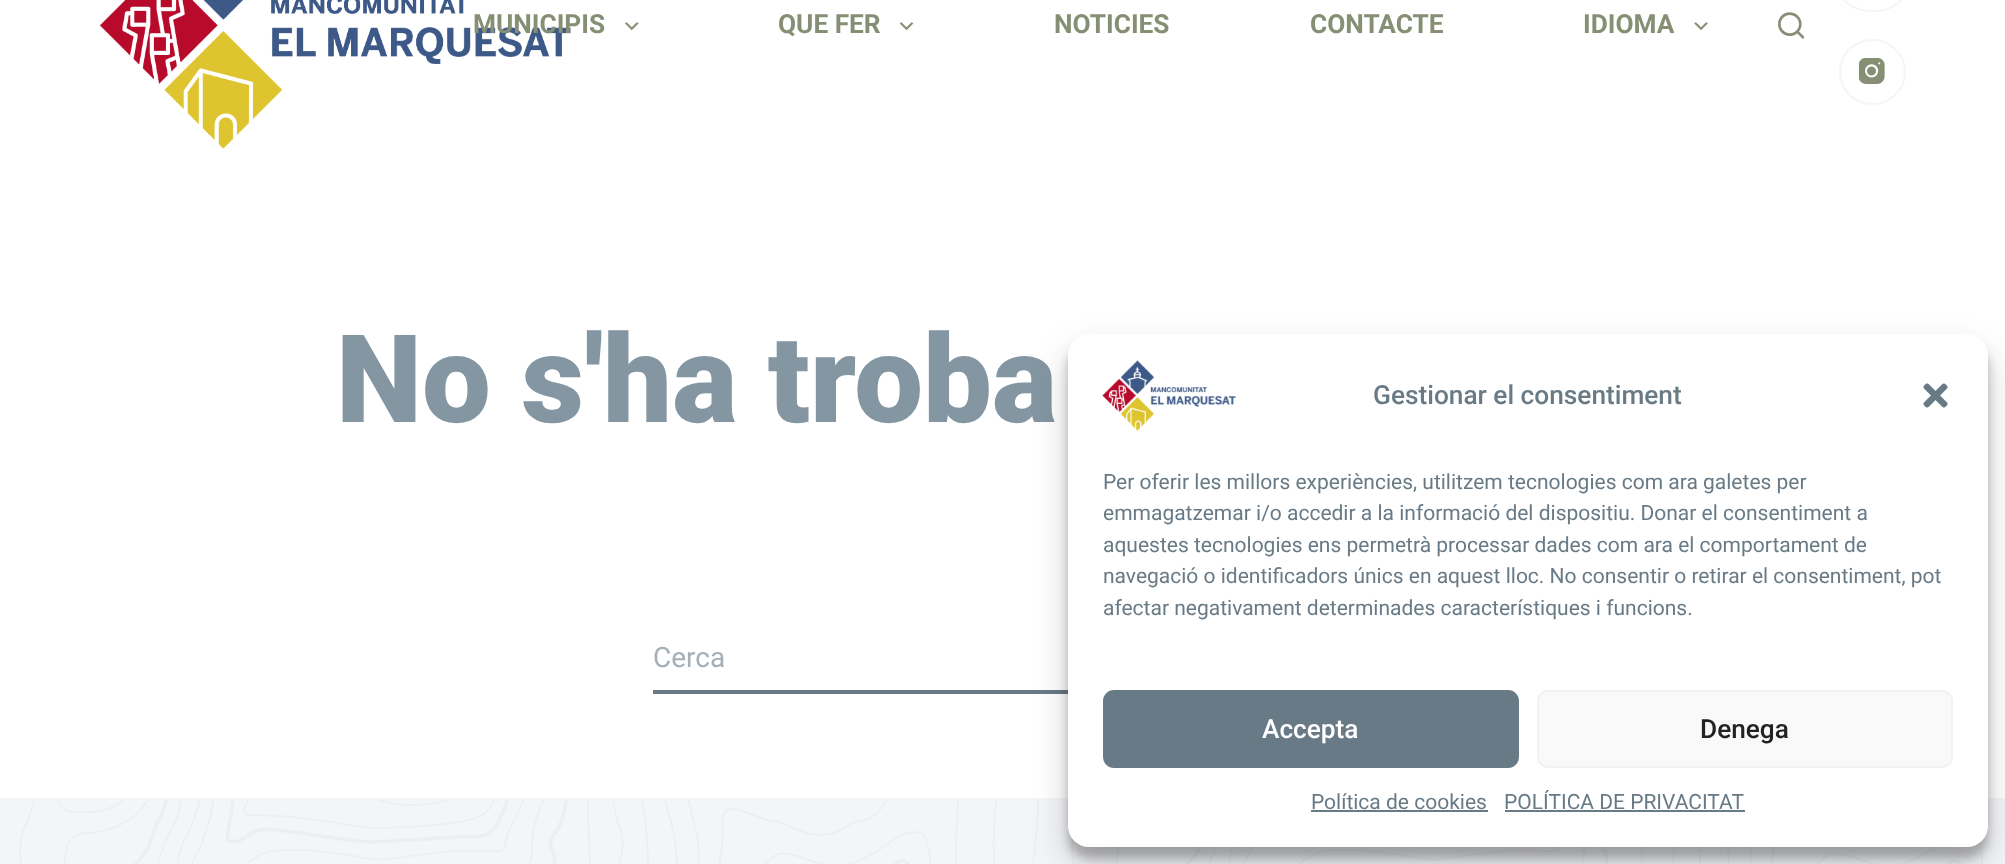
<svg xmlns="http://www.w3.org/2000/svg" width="2005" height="864">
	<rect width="100%" height="100%" fill="#FFFFFF" />
	<image x="99" y="0" width="472" height="149" href="assets/img1.png" />
	<text x="473" y="33" font-family="Roboto" font-size="26.25" font-weight="700" fill="#868F74">MUNICIPIS</text>
	<image x="625" y="22" width="14" height="9" href="assets/img2.png" />
	<text x="778" y="33" font-family="Roboto" font-size="26.25" font-weight="700" fill="#868F74">QUE FER</text>
	<image x="900" y="22" width="14" height="9" href="assets/img3.png" />
	<g font-family="Roboto" font-size="26.25" font-weight="700" fill="#868F74">
		<text x="1054" y="33">NOTICIES</text>
		<text x="1310" y="33">CONTACTE</text>
		<text x="1583" y="33">IDIOMA</text>
	</g>
	<image x="1694" y="22" width="14" height="9" href="assets/img4.png" />
	<image x="1778" y="12" width="26" height="27" href="assets/img5.png" />
	<rect x="1840" y="-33" width="65" height="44" rx="31" fill="none" stroke="#F4F5F7" stroke-width="2" />
	<rect x="1840" y="40" width="65" height="64" rx="32" fill="none" stroke="#F4F5F7" stroke-width="2" />
	<image x="1859" y="58" width="26" height="26" href="assets/img6.png" />
	<text x="336" y="422" font-family="Roboto" font-size="122.5" font-weight="900" fill="#8496A2">No s'ha troba</text>
	<rect x="653" y="690" width="415" height="4" fill="#687A86" />
	<text x="653" y="667" font-family="Roboto" font-size="28" fill="#A4AFB6">Cerca</text>
	<rect x="0" y="798" width="2005" height="66" fill="#F4F5F8" />
	<image x="19" y="800" width="1964" height="64" href="assets/img7.png" />
	<rect x="1068" y="345" width="920" height="513" rx="21" fill="#000000" fill-opacity="0.23" filter="blur(5px)" />
	<rect x="1068" y="352" width="920" height="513" rx="21" fill="#000000" fill-opacity="0.19" filter="blur(17.5px)" />
	<rect x="1068" y="334" width="920" height="513" rx="21" fill="#FFFFFF" />
	<image x="1102" y="360" width="134" height="71" href="assets/img8.png" />
	<text x="1373" y="404" font-family="Roboto" font-size="26.25" font-weight="500" fill="#687A86">Gestionar el consentiment</text>
	<image x="1923" y="383" width="25" height="25" href="assets/img9.png" />
	<g font-family="Roboto" font-size="21" fill="#687A86">
		<text x="1103" y="489">Per oferir les millors experiències, utilitzem tecnologies com ara galetes per</text>
		<text x="1103" y="520">emmagatzemar i/o accedir a la informació del dispositiu. Donar el consentiment a</text>
		<text x="1103" y="552">aquestes tecnologies ens permetrà processar dades com ara el comportament de</text>
		<text x="1103" y="583">navegació o identificadors únics en aquest lloc. No consentir o retirar el consentiment, pot</text>
		<text x="1103" y="615">afectar negativament determinades característiques i funcions.</text>
	</g>
	<rect x="1104" y="691" width="414" height="76" rx="10" fill="#687A86" stroke="#687A86" stroke-width="2" />
	<text x="1262" y="738" font-family="Roboto" font-size="26.25" font-weight="500" fill="#FFFFFF">Accepta</text>
	<rect x="1538" y="691" width="414" height="76" rx="10" fill="#F9F9F9" stroke="#F2F2F2" stroke-width="2" />
	<text x="1700" y="738" font-family="Roboto" font-size="26.25" font-weight="500" fill="#222222">Denega</text>
	<text x="1311" y="809" font-family="Roboto" font-size="21" fill="#687A86">Política de cookies</text>
	<rect x="1311" y="810" width="177" height="2" fill="#687A86" />
	<text x="1504" y="809" font-family="Roboto" font-size="21" fill="#687A86">POLÍTICA DE PRIVACITAT</text>
	<rect x="1505" y="810" width="240" height="2" fill="#687A86" />
</svg>
